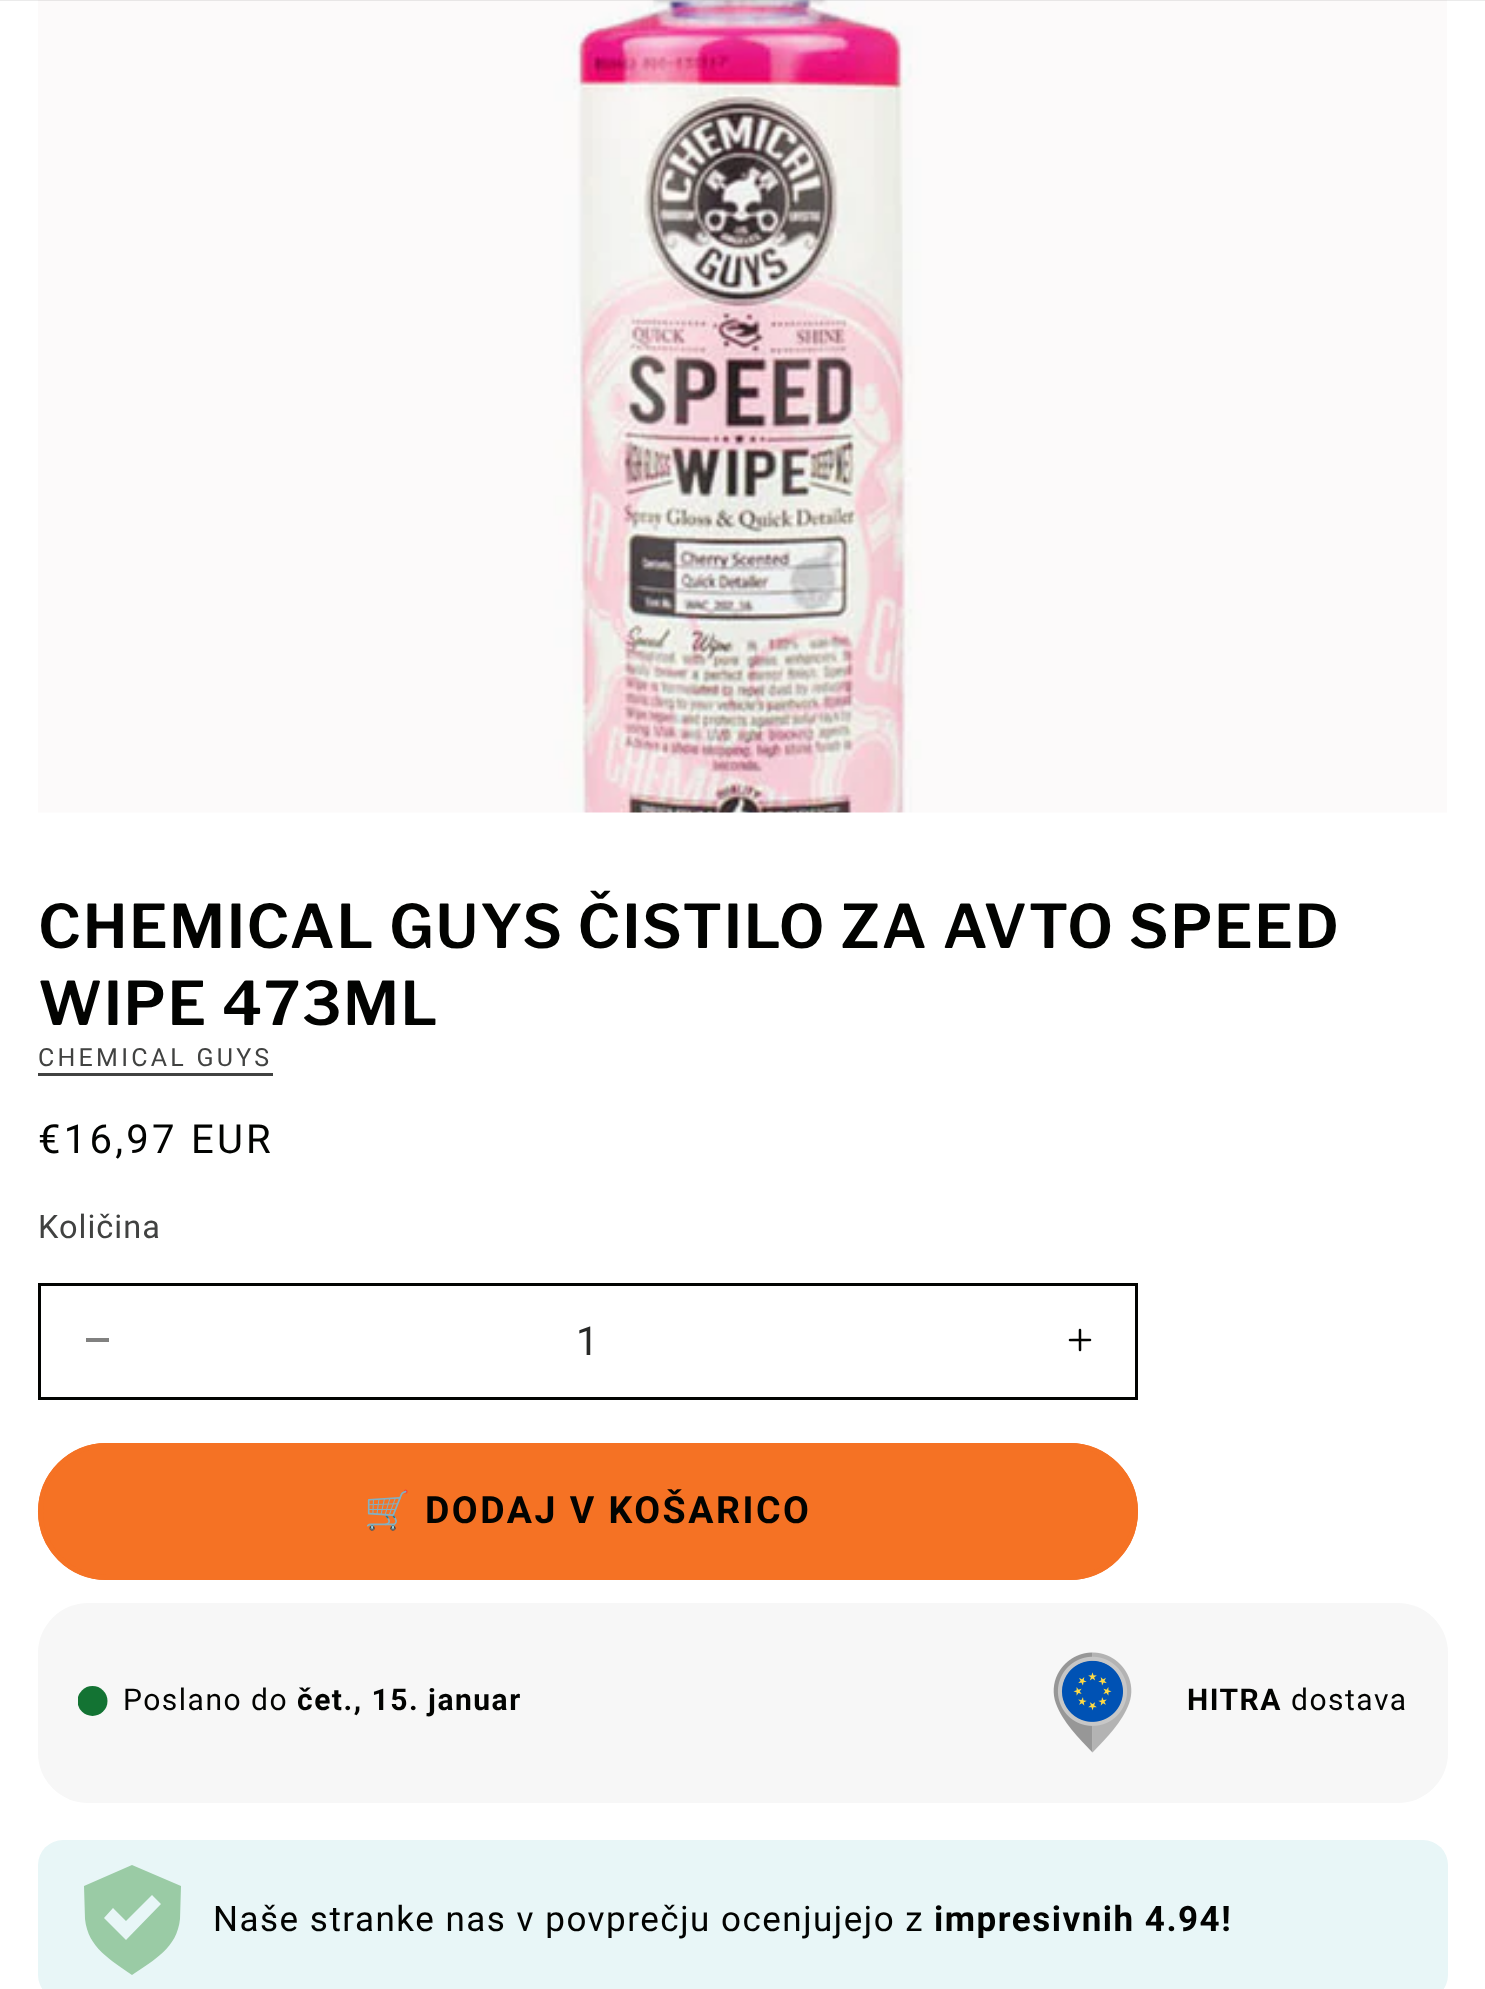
<svg xmlns="http://www.w3.org/2000/svg" width="1485" height="1989">
	<defs>
		<clipPath id="clip1"><rect x="78" y="1685" width="30" height="33" /></clipPath>
	</defs>
	<rect width="100%" height="100%" fill="#FFFFFF" />
	<image x="38" y="0" width="1409" height="813" href="assets/img1.png" />
	<rect x="0" y="0" width="1485" height="1" fill="#020301" fill-opacity="0.08" />
	<g font-family="Libre Franklin" font-size="60" font-weight="600" letter-spacing="1.5" fill="#020301">
		<text x="38" y="948">CHEMICAL GUYS ČISTILO ZA AVTO SPEED</text>
		<text x="38" y="1025">WIPE 473ML</text>
	</g>
	<text x="38" y="1066" font-family="Roboto" font-size="25" letter-spacing="3.25" fill="#414241">CHEMICAL GUYS</text>
	<rect x="38" y="1073" width="235" height="3" fill="#414241" />
	<text x="38" y="1153" font-family="Roboto" font-size="40" letter-spacing="3.25" fill="#020301">€16,97 EUR</text>
	<text x="38" y="1238" font-family="Roboto" font-size="32.5" letter-spacing="1" fill="#414241">Količina</text>
	<rect x="86" y="1338" width="23" height="4" fill="#818180" />
	<image x="1068" y="1328" width="24" height="24" href="assets/img2.png" />
	<rect x="39.5" y="1284.5" width="1097" height="114" fill="none" stroke="#020301" stroke-width="3" />
	<text x="576" y="1355" font-family="Roboto" font-size="40" fill="#282927">1</text>
	<rect x="38" y="1443" width="1100" height="137" rx="68.5" fill="#F57224" />
	<rect x="40.5" y="1445.5" width="1095" height="132" rx="66" fill="none" stroke="#F57224" stroke-width="5" />
	<text x="364" y="1523" font-family="Noto Color Emoji" font-size="37.5" font-weight="700" letter-spacing="2.5" fill="#020301">🛒</text>
	<text x="425" y="1523" font-family="Roboto" font-size="37.5" font-weight="700" letter-spacing="2.5" fill="#020301">DODAJ V KOŠARICO</text>
	<rect x="38" y="1603" width="1410" height="200" rx="50" fill="#F7F7F7" />
	<g clip-path="url(#clip1)">
		<circle cx="92.5" cy="1701" r="15" fill="#137333" />
	</g>
	<text x="123" y="1710" font-family="Roboto" font-size="30" letter-spacing="1.5" fill="#020301">Poslano do</text>
	<text x="297" y="1710" font-family="Roboto" font-size="30" font-weight="700" letter-spacing="1.5" fill="#020301">čet., 15. januar</text>
	<image x="1053" y="1652" width="79" height="101" href="assets/img3.png" />
	<text x="1187" y="1710" font-family="Roboto" font-size="30" font-weight="700" letter-spacing="1.5" fill="#020301">HITRA</text>
	<text x="1291" y="1710" font-family="Roboto" font-size="30" letter-spacing="1.5" fill="#020301">dostava</text>
	<rect x="38" y="1840" width="1410" height="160" rx="25" fill="#E8F6F7" />
	<path d="M132 1975C111 1960 88 1948 85 1919L84 1886L132 1865L181 1886L180 1919C177 1948 154 1960 132 1975ZM161 1904L152 1895L126 1921L113 1908L104 1918L126 1940Z" fill="#9ACBA5" fill-rule="evenodd" />
	<text x="213" y="1931" font-family="Roboto" font-size="35" letter-spacing="1.5" fill="#020301">Naše stranke nas v povprečju ocenjujejo z</text>
	<text x="934" y="1931" font-family="Roboto" font-size="35" font-weight="700" letter-spacing="1.5" fill="#020301">impresivnih 4.94!</text>
</svg>
